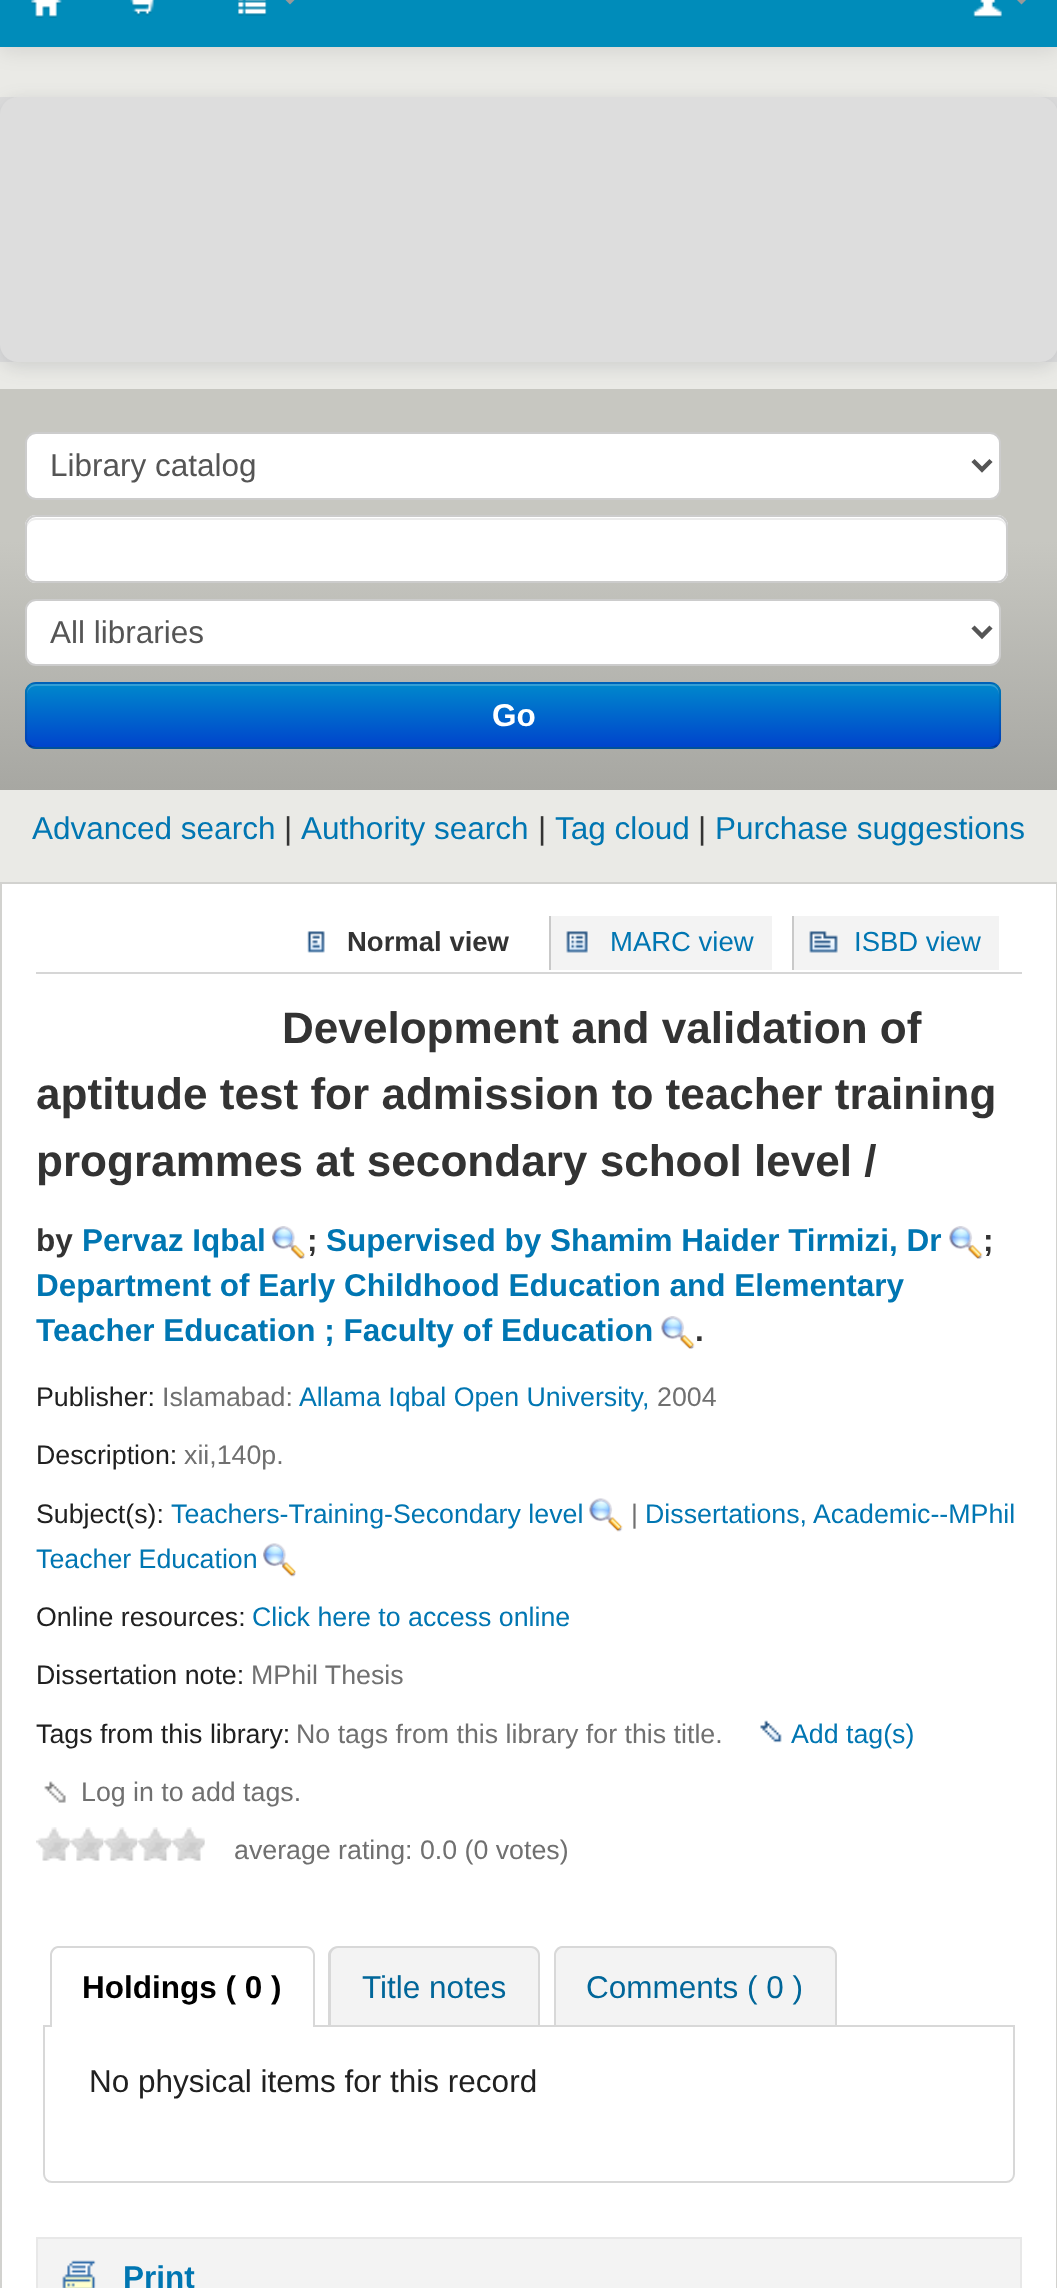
<svg xmlns="http://www.w3.org/2000/svg" width="1057" height="2288">
	<defs>
		<linearGradient id="g1" gradientUnits="userSpaceOnUse" x1="529" y1="389" x2="529" y2="790"><stop offset="0.38" stop-color="#C7C7C1" /><stop offset="1" stop-color="#A7A7A2" /></linearGradient>
		<clipPath id="clip1"><path d="M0 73H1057V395H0ZM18 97H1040C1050 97 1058 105 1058 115V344C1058 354 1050 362 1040 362H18C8 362 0 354 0 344V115C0 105 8 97 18 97Z" clip-rule="evenodd" /></clipPath>
		<clipPath id="clip2"><rect x="25" y="682" width="976" height="67" rx="11" /></clipPath>
		<linearGradient id="g2" gradientUnits="userSpaceOnUse" x1="513" y1="684" x2="513" y2="747"><stop offset="0" stop-color="#0088CC" /><stop offset="1" stop-color="#0044CC" /></linearGradient>
	</defs>
	<rect width="100%" height="100%" fill="#EAEAE6" />
	<rect x="0" y="-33" width="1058" height="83" fill="#000000" fill-opacity="0.1" filter="blur(11px)" />
	<rect x="0" y="0" width="1057" height="47" fill="#008CBA" />
	<image x="31" y="0" width="31" height="18" href="assets/img1.png" />
	<image x="130" y="0" width="25" height="16" href="assets/img2.png" />
	<image x="238" y="0" width="29" height="16" href="assets/img3.png" />
	<path d="M281-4.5H299L290 4.5Z" fill="#999999" />
	<image x="973" y="0" width="29" height="18" href="assets/img4.png" />
	<path d="M1012.5-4.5H1030.5L1021.5 4.5Z" fill="#999999" />
	<rect x="0" y="97" width="1057" height="265" fill="#DDDDDD" />
	<rect x="0" y="389" width="1057" height="401" fill="url(#g1)" />
	<g clip-path="url(#clip1)">
		<rect x="0" y="101" width="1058" height="266" rx="18" fill="#3F4551" fill-opacity="0.16" filter="blur(9px)" />
	</g>
	<rect x="26" y="433" width="974" height="66" rx="10" fill="#FFFFFF" stroke="#CCCCCC" stroke-width="2" />
	<path d="M973 460.5L982 469.5L991 460.5" fill="none" stroke="#555555" stroke-width="4.5" />
	<text x="50" y="476" font-family="Liberation Sans" font-size="31.5" fill="#555555">Library catalog</text>
	<rect x="25" y="515" width="983" height="68" rx="11" fill="#FFFFFF" />
	<path d="M36 520H997C1002 520 1006 524 1006 529V527C1006 522 1002 518 997 518H36C31 518 27 522 27 527V529C27 524 31 520 36 520Z" fill="#ECECEC" />
	<rect x="26" y="516" width="981" height="66" rx="10" fill="none" stroke="#CCCCCC" stroke-width="2" />
	<rect x="26" y="600" width="974" height="65" rx="10" fill="#FFFFFF" stroke="#CCCCCC" stroke-width="2" />
	<path d="M973 627L982 636L991 627" fill="none" stroke="#555555" stroke-width="4.5" />
	<text x="50" y="643" font-family="Liberation Sans" font-size="31.5" fill="#555555">All libraries</text>
	<rect x="25" y="682" width="976" height="67" rx="11" fill="#006DCC" />
	<g clip-path="url(#clip2)">
		<rect x="25" y="684" width="976" height="63" fill="url(#g2)" />
	</g>
	<path d="M36 686H990C995 686 999 690 999 695V693C999 688 995 684 990 684H36C31 684 27 688 27 693V695C27 690 31 686 36 686Z" fill="#FFFFFF" fill-opacity="0.2" />
	<path d="M997 745C995.5 747 992.5 748 990 748H36C33.5 748 30.5 747 29 745" fill="none" stroke="#000000" stroke-opacity="0.25" stroke-width="2.2" />
	<path d="M29 745C27 743.5 26 740.5 26 738V693C26 690.5 27 687.5 29 686C30.5 684 33.5 683 36 683H990C992.5 683 995.5 684 997 686C999 687.5 1000 690.5 1000 693V738C1000 740.5 999 743.5 997 745" fill="none" stroke="#000000" stroke-opacity="0.1" stroke-width="2.2" />
	<text x="492" y="726" font-family="Liberation Sans" font-size="31.5" font-weight="700" fill="#FFFFFF">Go</text>
	<text x="32" y="839" font-family="Liberation Sans" font-size="31.5" fill="#0076B2">Advanced search</text>
	<text x="284" y="839" font-family="Liberation Sans" font-size="31.5" fill="#333333">|</text>
	<text x="301" y="839" font-family="Liberation Sans" font-size="31.5" fill="#0076B2">Authority search</text>
	<text x="538" y="839" font-family="Liberation Sans" font-size="31.5" fill="#333333">|</text>
	<text x="555" y="839" font-family="Liberation Sans" font-size="31.5" fill="#0076B2">Tag cloud</text>
	<text x="698" y="839" font-family="Liberation Sans" font-size="31.5" fill="#333333">|</text>
	<text x="715" y="839" font-family="Liberation Sans" font-size="31.5" fill="#0076B2">Purchase suggestions</text>
	<rect x="1" y="883" width="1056" height="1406" fill="#FFFFFF" stroke="#D2D2CF" stroke-width="2" />
	<rect x="36" y="972" width="986" height="2" fill="#D6D6D6" />
	<image x="307" y="931" width="18" height="22" href="assets/img5.png" />
	<text x="347" y="951" font-family="Liberation Sans" font-size="27.5" font-weight="700" fill="#333333">Normal view</text>
	<rect x="551" y="916" width="221" height="54" fill="#F3F3F3" />
	<image x="566" y="931" width="22" height="22" href="assets/img6.png" />
	<text x="610" y="951" font-family="Liberation Sans" font-size="27.5" fill="#0076B2">MARC view</text>
	<rect x="549" y="916" width="2" height="54" fill="#C9C9C9" />
	<rect x="794" y="916" width="205" height="54" fill="#F3F3F3" />
	<image x="809" y="931" width="29" height="22" href="assets/img7.png" />
	<text x="854" y="951" font-family="Liberation Sans" font-size="27.5" fill="#0076B2">ISBD view</text>
	<rect x="792" y="916" width="2" height="54" fill="#C9C9C9" />
	<g font-family="Liberation Sans" font-size="44.1" font-weight="700" fill="#333333">
		<text x="282" y="1043">Development and validation of</text>
		<text x="36" y="1109">aptitude test for admission to teacher training</text>
		<text x="36" y="1176">programmes at secondary school level /</text>
	</g>
	<text x="36" y="1251" font-family="Liberation Sans" font-size="31.5" font-weight="700" fill="#333333">by</text>
	<text x="82" y="1251" font-family="Liberation Sans" font-size="31.5" font-weight="700" fill="#0076B2">Pervaz Iqbal</text>
	<image x="272" y="1226" width="33" height="33" href="assets/img8.png" />
	<text x="307" y="1251" font-family="Liberation Sans" font-size="31.5" font-weight="700" fill="#333333">;</text>
	<text x="326" y="1251" font-family="Liberation Sans" font-size="31.5" font-weight="700" fill="#0076B2">Supervised by Shamim Haider Tirmizi, Dr</text>
	<image x="949" y="1226" width="34" height="33" href="assets/img9.png" />
	<text x="983" y="1251" font-family="Liberation Sans" font-size="31.5" font-weight="700" fill="#333333">;</text>
	<g font-family="Liberation Sans" font-size="31.5" font-weight="700" fill="#0076B2">
		<text x="36" y="1296">Department of Early Childhood Education and Elementary</text>
		<text x="36" y="1341">Teacher Education ; Faculty of Education</text>
	</g>
	<image x="661" y="1316" width="34" height="33" href="assets/img9.png" />
	<text x="695" y="1341" font-family="Liberation Sans" font-size="31.5" font-weight="700" fill="#333333">.</text>
	<text x="36" y="1406" font-family="Liberation Sans" font-size="26.75" fill="#202020">Publisher:</text>
	<text x="162" y="1406" font-family="Liberation Sans" font-size="26.75" fill="#707070">Islamabad:</text>
	<text x="299" y="1406" font-family="Liberation Sans" font-size="26.75" fill="#0076B2">Allama Iqbal Open University,</text>
	<text x="657" y="1406" font-family="Liberation Sans" font-size="26.75" fill="#707070">2004</text>
	<text x="36" y="1464" font-family="Liberation Sans" font-size="26.75" fill="#202020">Description:</text>
	<text x="184" y="1464" font-family="Liberation Sans" font-size="26.75" fill="#707070">xii,140p.</text>
	<text x="36" y="1523" font-family="Liberation Sans" font-size="26.75" fill="#202020">Subject(s):</text>
	<text x="171" y="1523" font-family="Liberation Sans" font-size="26.75" fill="#0076B2">Teachers-Training-Secondary level</text>
	<image x="589" y="1498" width="34" height="34" href="assets/img10.png" />
	<text x="631" y="1523" font-family="Liberation Sans" font-size="26.75" fill="#707070">|</text>
	<g font-family="Liberation Sans" font-size="26.75" fill="#0076B2">
		<text x="645" y="1523">Dissertations, Academic--MPhil</text>
		<text x="36" y="1568">Teacher Education</text>
	</g>
	<image x="263" y="1543" width="33" height="34" href="assets/img11.png" />
	<text x="36" y="1626" font-family="Liberation Sans" font-size="26.75" fill="#202020">Online resources:</text>
	<text x="252" y="1626" font-family="Liberation Sans" font-size="26.75" fill="#0076B2">Click here to access online</text>
	<text x="36" y="1684" font-family="Liberation Sans" font-size="26.75" fill="#202020">Dissertation note:</text>
	<text x="251" y="1684" font-family="Liberation Sans" font-size="26.75" fill="#707070">MPhil Thesis</text>
	<text x="36" y="1743" font-family="Liberation Sans" font-size="26.75" fill="#202020">Tags from this library:</text>
	<text x="296" y="1743" font-family="Liberation Sans" font-size="26.75" fill="#707070">No tags from this library for this title.</text>
	<image x="760" y="1720" width="22" height="23" href="assets/img12.png" />
	<text x="791" y="1743" font-family="Liberation Sans" font-size="26.75" fill="#0076B2">Add tag(s)</text>
	<image x="44" y="1781" width="22" height="22" href="assets/img13.png" />
	<text x="81" y="1801" font-family="Liberation Sans" font-size="26.75" fill="#707070">Log in to add tags.</text>
	<image x="36" y="1827" width="34" height="34" href="assets/img14.png" />
	<image x="70" y="1827" width="34" height="34" href="assets/img15.png" />
	<image x="104" y="1827" width="34" height="34" href="assets/img16.png" />
	<image x="137" y="1827" width="34" height="34" href="assets/img17.png" />
	<image x="171" y="1827" width="34" height="34" href="assets/img18.png" />
	<text x="234" y="1859" font-family="Liberation Sans" font-size="26.75" fill="#707070">average rating: 0.0 (0 votes)</text>
	<path d="M44 2026H1014V2174C1014 2178.5 1010.5 2182 1006 2182H52C47.5 2182 44 2178.5 44 2174Z" fill="none" stroke="#D8D8D8" stroke-width="2" />
	<path d="M59 1946H306C311 1946 315 1950 315 1955V2027H50V1955C50 1950 54 1946 59 1946Z" fill="#FFFFFF" />
	<path d="M58 1946H306C311 1946 315 1950 315 1955V2027H50V1955C50 1950 54 1946 58 1946ZM58 1948H306C310 1948 313 1952 313 1955V2027H52V1955C52 1952 55 1948 58 1948Z" fill="#D8D8D8" fill-rule="evenodd" />
	<text x="82" y="1998" font-family="Liberation Sans" font-size="31.5" font-weight="700" fill="#000000">Holdings ( 0 )</text>
	<path d="M338 1946H531C536 1946 540 1950 540 1955V2025H329V1955C329 1950 333 1946 338 1946Z" fill="#F3F3F3" />
	<path d="M338 1946H531C536 1946 540 1950 540 1955V2025H328V1955C328 1950 333 1946 338 1946ZM338 1948H531C535 1948 538 1952 538 1955V2025H331V1955C331 1952 334 1948 338 1948Z" fill="#D8D8D8" fill-rule="evenodd" />
	<text x="362" y="1998" font-family="Liberation Sans" font-size="31.5" fill="#006699">Title notes</text>
	<path d="M563 1946H828C833 1946 837 1950 837 1955V2025H554V1955C554 1950 558 1946 563 1946Z" fill="#F3F3F3" />
	<path d="M562 1946H828C833 1946 837 1950 837 1955V2025H554V1955C554 1950 558 1946 562 1946ZM562 1948H828C832 1948 835 1952 835 1955V2025H556V1955C556 1952 559 1948 562 1948Z" fill="#D8D8D8" fill-rule="evenodd" />
	<text x="586" y="1998" font-family="Liberation Sans" font-size="31.5" fill="#006699">Comments ( 0 )</text>
	<text x="89" y="2092" font-family="Liberation Sans" font-size="31.5" fill="#202020">No physical items for this record</text>
	<rect x="37" y="2238" width="984" height="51" fill="#F3F3F3" stroke="#E8E8E8" stroke-width="2" />
	<image x="62" y="2260" width="34" height="28" href="assets/img19.png" />
	<text x="123" y="2288" font-family="Liberation Sans" font-size="31.5" font-weight="700" fill="#0076B2">Print</text>
</svg>
